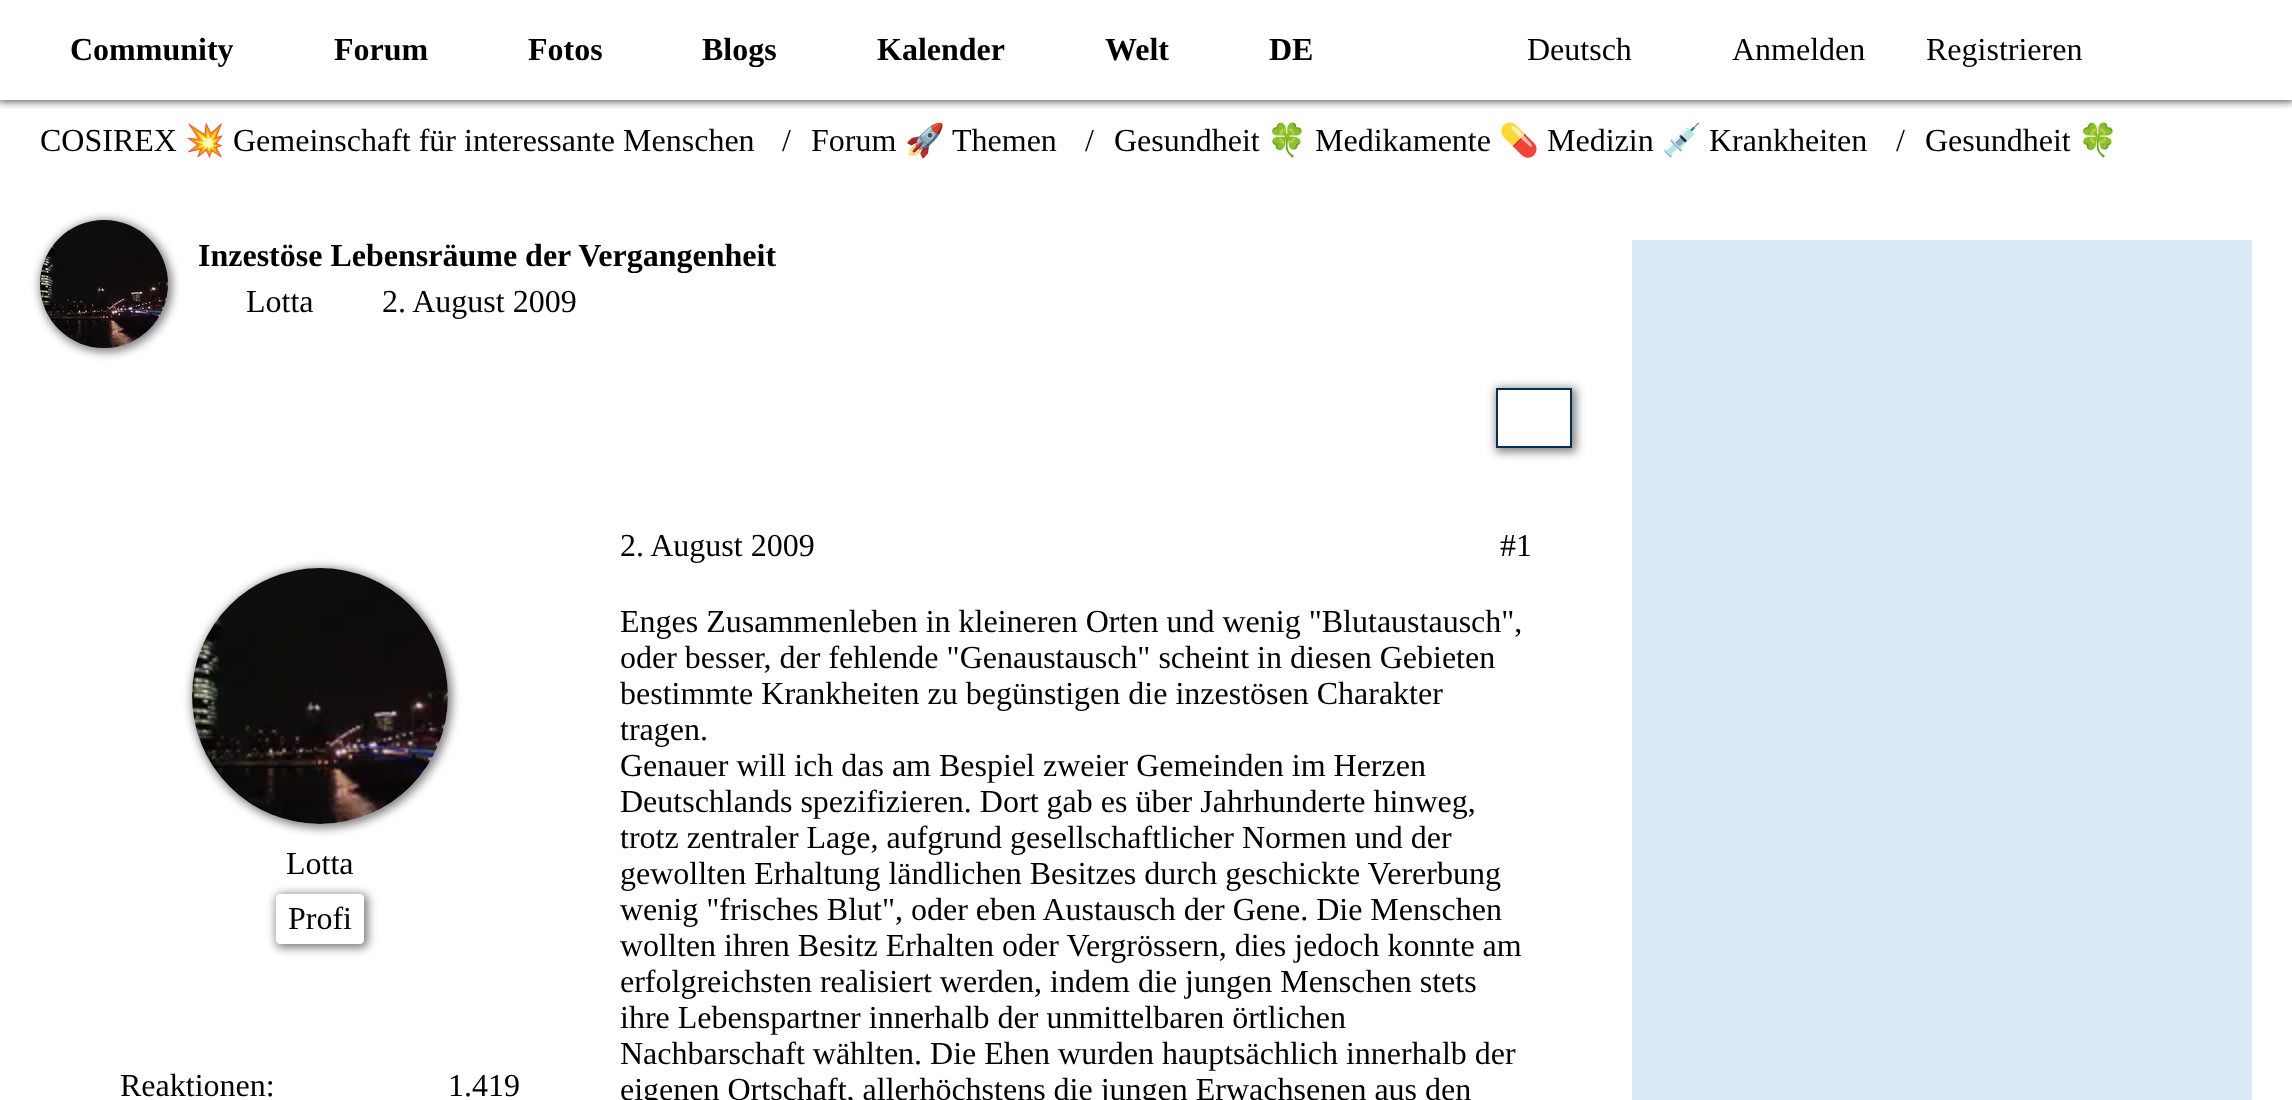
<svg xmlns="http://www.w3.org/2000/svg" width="2292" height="1100">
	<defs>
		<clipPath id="clip1"><rect x="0" y="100" width="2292" height="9" /></clipPath>
		<clipPath id="clip2"><path d="M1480 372H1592V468H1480ZM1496 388H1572V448H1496Z" clip-rule="evenodd" /></clipPath>
		<clipPath id="clip3"><path d="M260 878H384V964H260ZM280 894H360C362 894 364 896 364 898V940C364 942 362 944 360 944H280C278 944 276 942 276 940V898C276 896 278 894 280 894Z" clip-rule="evenodd" /></clipPath>
	</defs>
	<rect width="100%" height="100%" fill="#FFFFFF" />
	<g clip-path="url(#clip1)">
		<rect x="-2" y="-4" width="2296" height="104" fill="#000000" fill-opacity="0.5" filter="blur(5px)" />
		<rect x="-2" y="-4" width="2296" height="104" fill="#000000" fill-opacity="0.5" filter="blur(5px)" />
	</g>
	<g font-family="Liberation Serif" font-size="32" font-weight="700" fill="#000000">
		<text x="70" y="60">Community</text>
		<text x="334" y="60">Forum</text>
		<text x="528" y="60">Fotos</text>
		<text x="702" y="60">Blogs</text>
		<text x="877" y="60">Kalender</text>
		<text x="1105" y="60">Welt</text>
		<text x="1269" y="60">DE</text>
	</g>
	<g font-family="Liberation Serif" font-size="32" fill="#000000">
		<text x="1527" y="60">Deutsch</text>
		<text x="1732" y="60">Anmelden</text>
		<text x="1926" y="60">Registrieren</text>
		<text x="40" y="151">COSIREX</text>
	</g>
	<text x="185" y="151" font-family="Noto Color Emoji" font-size="32" fill="#000000">💥</text>
	<g font-family="Liberation Serif" font-size="32" fill="#000000">
		<text x="233" y="151">Gemeinschaft für interessante Menschen</text>
		<text x="782" y="151">/</text>
		<text x="811" y="151">Forum</text>
	</g>
	<text x="905" y="151" font-family="Noto Color Emoji" font-size="32" fill="#000000">🚀</text>
	<g font-family="Liberation Serif" font-size="32" fill="#000000">
		<text x="952" y="151">Themen</text>
		<text x="1085" y="151">/</text>
		<text x="1114" y="151">Gesundheit</text>
	</g>
	<text x="1267" y="151" font-family="Noto Color Emoji" font-size="32" fill="#000000">🍀</text>
	<text x="1315" y="151" font-family="Liberation Serif" font-size="32" fill="#000000">Medikamente</text>
	<text x="1499" y="151" font-family="Noto Color Emoji" font-size="32" fill="#000000">💊</text>
	<text x="1547" y="151" font-family="Liberation Serif" font-size="32" fill="#000000">Medizin</text>
	<text x="1662" y="151" font-family="Noto Color Emoji" font-size="32" fill="#000000">💉</text>
	<g font-family="Liberation Serif" font-size="32" fill="#000000">
		<text x="1709" y="151">Krankheiten</text>
		<text x="1896" y="151">/</text>
		<text x="1925" y="151">Gesundheit</text>
	</g>
	<text x="2078" y="151" font-family="Noto Color Emoji" font-size="32" fill="#000000">🍀</text>
	<rect x="40" y="220" width="132" height="132" rx="66" fill="#000000" fill-opacity="0.5" filter="blur(5px)" />
	<image x="40" y="220" width="128" height="128" href="assets/img1.png" />
	<text x="198" y="266" font-family="Liberation Serif" font-size="32" font-weight="700" fill="#000000">Inzestöse Lebensräume der Vergangenheit</text>
	<g font-family="Liberation Serif" font-size="32" fill="#000000">
		<text x="246" y="312">Lotta</text>
		<text x="382" y="312">2. August 2009</text>
	</g>
	<g clip-path="url(#clip2)">
		<rect x="1496" y="388" width="80" height="64" fill="#000000" fill-opacity="0.5" filter="blur(5px)" />
	</g>
	<rect x="1497" y="389" width="74" height="58" fill="none" stroke="#042E55" stroke-width="2" />
	<rect x="192" y="568" width="260" height="260" rx="130" fill="#000000" fill-opacity="0.5" filter="blur(5px)" />
	<circle cx="320" cy="696" r="128" fill="#FFFFFF" />
	<image x="192" y="568" width="256" height="256" href="assets/img2.png" />
	<text x="286" y="874" font-family="Liberation Serif" font-size="32" fill="#000000">Lotta</text>
	<g clip-path="url(#clip3)">
		<rect x="276" y="894" width="92" height="54" rx="6" fill="#000000" fill-opacity="0.5" filter="blur(5px)" />
	</g>
	<g font-family="Liberation Serif" font-size="32" fill="#000000">
		<text x="288" y="929">Profi</text>
		<text x="120" y="1096">Reaktionen:</text>
		<text x="448" y="1096">1.419</text>
		<text x="620" y="556">2. August 2009</text>
		<text x="1500" y="556">#1</text>
		<text x="620" y="632">Enges Zusammenleben in kleineren Orten und wenig "Blutaustausch",</text>
		<text x="620" y="668">oder besser, der fehlende "Genaustausch" scheint in diesen Gebieten</text>
		<text x="620" y="704">bestimmte Krankheiten zu begünstigen die inzestösen Charakter</text>
		<text x="620" y="740">tragen.</text>
		<text x="620" y="776">Genauer will ich das am Bespiel zweier Gemeinden im Herzen</text>
		<text x="620" y="812">Deutschlands spezifizieren. Dort gab es über Jahrhunderte hinweg,</text>
		<text x="620" y="848">trotz zentraler Lage, aufgrund gesellschaftlicher Normen und der</text>
		<text x="620" y="884">gewollten Erhaltung ländlichen Besitzes durch geschickte Vererbung</text>
		<text x="620" y="920">wenig "frisches Blut", oder eben Austausch der Gene. Die Menschen</text>
		<text x="620" y="956">wollten ihren Besitz Erhalten oder Vergrössern, dies jedoch konnte am</text>
		<text x="620" y="992">erfolgreichsten realisiert werden, indem die jungen Menschen stets</text>
		<text x="620" y="1028">ihre Lebenspartner innerhalb der unmittelbaren örtlichen</text>
		<text x="620" y="1064">Nachbarschaft wählten. Die Ehen wurden hauptsächlich innerhalb der</text>
		<text x="620" y="1100">eigenen Ortschaft, allerhöchstens die jungen Erwachsenen aus den</text>
	</g>
	<rect x="1632" y="240" width="620" height="860" fill="#DBEAF7" />
</svg>
